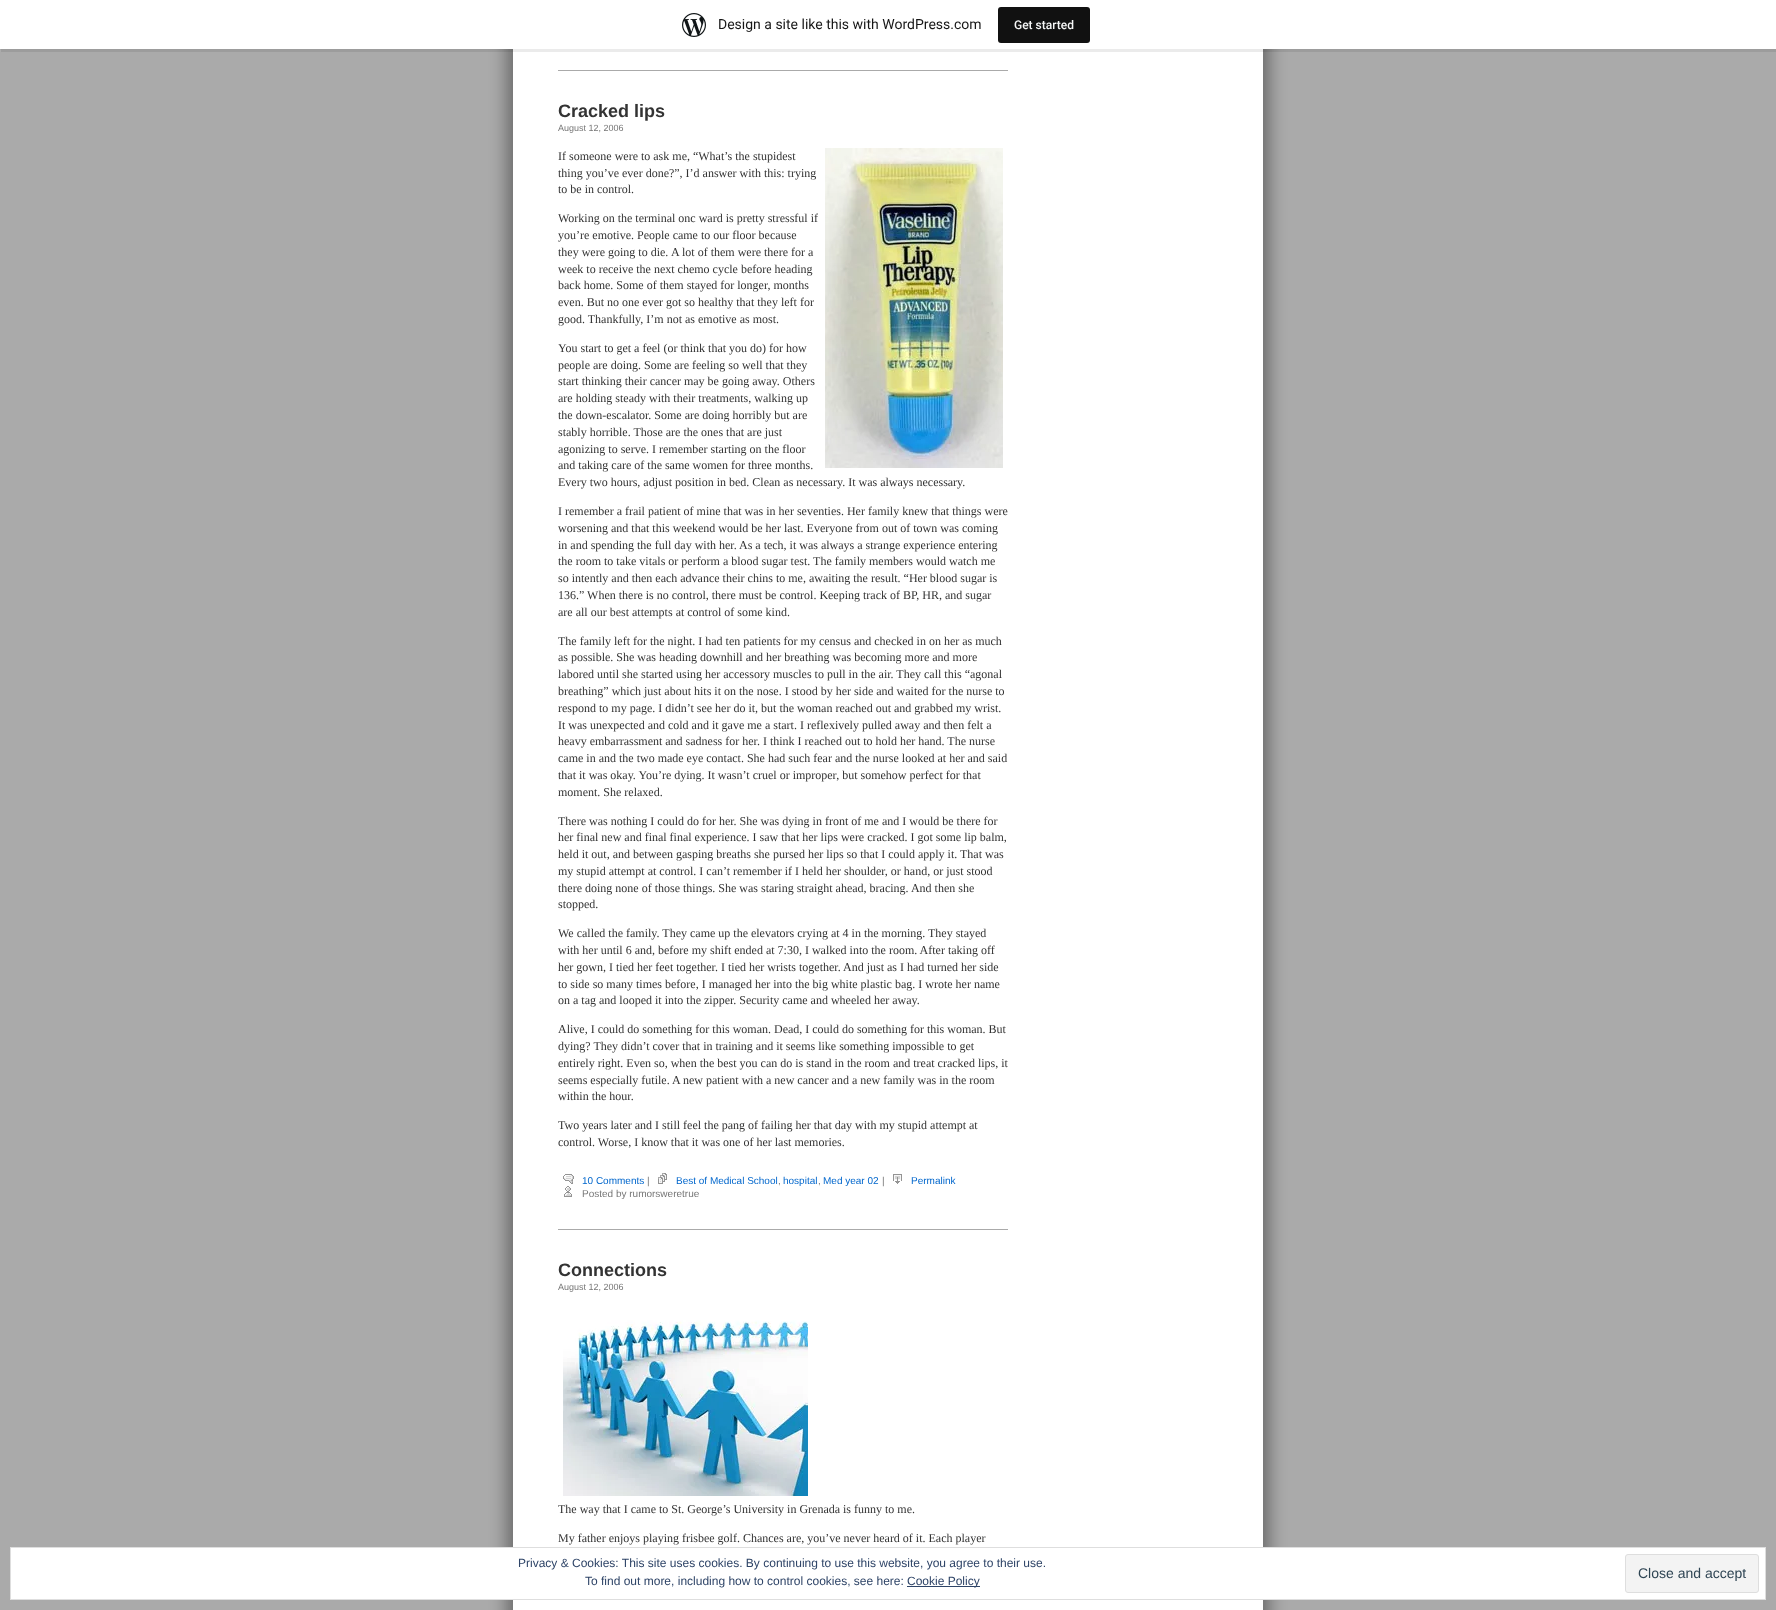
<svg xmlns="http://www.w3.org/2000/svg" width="1776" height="1610">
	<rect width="100%" height="100%" fill="#AAAAAA" />
	<rect x="505" y="-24" width="750" height="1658" fill="#000000" fill-opacity="0.3" filter="blur(8px)" />
	<rect x="521" y="-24" width="750" height="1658" fill="#000000" fill-opacity="0.3" filter="blur(8px)" />
	<rect x="513" y="49" width="750" height="1561" fill="#FFFFFF" />
	<path d="M1 49V52H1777V3H1776V49Z" fill="#000000" fill-opacity="0.08" />
	<rect x="0" y="0" width="1776" height="49" fill="#FFFFFF" />
	<image x="682" y="13" width="24" height="24" href="assets/img1.png" />
	<text x="718" y="29" font-family="Roboto" font-size="14" fill="#171717">Design a site like this with WordPress.com</text>
	<rect x="998" y="7" width="92" height="36" rx="3" fill="#111111" />
	<text x="1014" y="29" font-family="Roboto" font-size="12" font-weight="500" fill="#F6F7F7">Get started</text>
	<rect x="558" y="70" width="450" height="1" fill="#AAAAAA" />
	<text x="558" y="117" font-family="Liberation Sans" font-size="18" font-weight="700" fill="#333333">Cracked lips</text>
	<text x="558" y="131" font-family="Liberation Sans" font-size="9" fill="#777777">August 12, 2006</text>
	<text x="558" y="160" font-family="Liberation Serif" font-size="12" fill="#333333">If someone were to ask me, “What’s the stupidest</text>
	<image x="825" y="148" width="178" height="320" href="assets/img2.png" />
	<g font-family="Liberation Serif" font-size="12" fill="#333333">
		<text x="558" y="177">thing you’ve ever done?”, I’d answer with this: trying</text>
		<text x="558" y="193">to be in control.</text>
		<text x="558" y="222">Working on the terminal onc ward is pretty stressful if</text>
		<text x="558" y="239">you’re emotive. People came to our floor because</text>
		<text x="558" y="256">they were going to die.</text>
		<text x="671" y="256">A lot of them were there for a</text>
		<text x="558" y="273">week to receive the next chemo cycle before heading</text>
		<text x="558" y="289">back home. Some of them stayed for longer, months</text>
		<text x="558" y="306">even. But no one ever got so healthy that they left for</text>
		<text x="558" y="323">good. Thankfully, I’m not as emotive as most.</text>
		<text x="558" y="352">You start to get a feel (or think that you do) for how</text>
		<text x="558" y="369">people are doing. Some are feeling so well that they</text>
		<text x="558" y="385">start thinking their cancer may be going away. Others</text>
		<text x="558" y="402">are holding steady with their treatments, walking up</text>
		<text x="558" y="419">the down-escalator. Some are doing horribly but are</text>
		<text x="558" y="436">stably horrible. Those are the ones that are just</text>
		<text x="558" y="453">agonizing to serve. I remember starting on the floor</text>
		<text x="558" y="469">and taking care of the same women for three months.</text>
		<text x="558" y="486">Every two hours, adjust position in bed. Clean as necessary. It was always necessary.</text>
		<text x="558" y="515">I remember a frail patient of mine that was in her seventies. Her family knew that things were</text>
		<text x="558" y="532">worsening and that this weekend would be her last. Everyone from out of town was coming</text>
		<text x="558" y="549">in and spending the full day with her. As a tech, it was always a strange experience entering</text>
		<text x="558" y="565">the room to take vitals or perform a blood sugar test. The family members would watch me</text>
		<text x="558" y="582">so intently and then each advance their chins to me, awaiting the result. “Her blood sugar is</text>
		<text x="558" y="599">136.” When there is no control, there must be control. Keeping track of BP, HR, and sugar</text>
		<text x="558" y="616">are all our best attempts at control of some kind.</text>
		<text x="558" y="645">The family left for the night. I had ten patients for my census and checked in on her as much</text>
		<text x="558" y="661">as possible. She was heading downhill and her breathing was becoming more and more</text>
		<text x="558" y="678">labored until she started using her accessory muscles to pull in the air. They call this “agonal</text>
		<text x="558" y="695">breathing” which just about hits it on the nose. I stood by her side and waited for the nurse to</text>
		<text x="558" y="712">respond to my page. I didn’t see her do it, but the woman reached out and grabbed my wrist.</text>
		<text x="558" y="729">It was unexpected and cold and it gave me a start. I reflexively pulled away and then felt a</text>
		<text x="558" y="745">heavy embarrassment and sadness for her. I think I reached out to hold her hand. The nurse</text>
		<text x="558" y="762">came in and the two made eye contact. She had such fear and the nurse looked at her and said</text>
		<text x="558" y="779">that it was okay. You’re dying. It wasn’t cruel or improper, but somehow perfect for that</text>
		<text x="558" y="796">moment. She relaxed.</text>
		<text x="558" y="825">There was nothing I could do for her. She was dying in front of me and I would be there for</text>
		<text x="558" y="841">her final new and final final experience. I saw that her lips were cracked. I got some lip balm,</text>
		<text x="558" y="858">held it out, and between gasping breaths she pursed her lips so that I could apply it. That was</text>
		<text x="558" y="875">my stupid attempt at control. I can’t remember if I held her shoulder, or hand, or just stood</text>
		<text x="558" y="892">there doing none of those things. She was staring straight ahead, bracing. And then she</text>
		<text x="558" y="908">stopped.</text>
		<text x="558" y="937">We called the family. They came up the elevators crying at 4 in the morning. They stayed</text>
		<text x="558" y="954">with her until 6 and, before my shift ended at 7:30, I walked into the room. After taking off</text>
		<text x="558" y="971">her gown, I tied her feet together.</text>
		<text x="721" y="971">I tied her wrists together.</text>
		<text x="843" y="971">And just as I had turned her side</text>
		<text x="558" y="988">to side so many times before, I managed her into the big white plastic bag. I wrote her name</text>
		<text x="558" y="1004">on a tag and looped it into the zipper. Security came and wheeled her away.</text>
		<text x="558" y="1033">Alive, I could do something for this woman. Dead, I could do something for this woman. But</text>
		<text x="558" y="1050">dying? They didn’t cover that in training and it seems like something impossible to get</text>
		<text x="558" y="1067">entirely right. Even so, when the best you can do is stand in the room and treat cracked lips, it</text>
		<text x="558" y="1084">seems especially futile.</text>
		<text x="672" y="1084">A new patient with a new cancer and a new family was in the room</text>
		<text x="558" y="1100">within the hour.</text>
		<text x="558" y="1129">Two years later and I still feel the pang of failing her that day with my stupid attempt at</text>
		<text x="558" y="1146">control. Worse, I know that it was one of her last memories.</text>
	</g>
	<image x="563" y="1174" width="11" height="10" href="assets/img3.png" />
	<text x="582" y="1184" font-family="Liberation Sans" font-size="10" fill="#0066CC">10 Comments</text>
	<text x="647" y="1184" font-family="Liberation Sans" font-size="10" fill="#777777">|</text>
	<image x="658" y="1173" width="9" height="11" href="assets/img4.png" />
	<text x="676" y="1184" font-family="Liberation Sans" font-size="10" fill="#0066CC">Best of Medical School</text>
	<text x="778" y="1184" font-family="Liberation Sans" font-size="10" fill="#777777">,</text>
	<text x="783" y="1184" font-family="Liberation Sans" font-size="10" fill="#0066CC">hospital</text>
	<text x="818" y="1184" font-family="Liberation Sans" font-size="10" fill="#777777">,</text>
	<text x="823" y="1184" font-family="Liberation Sans" font-size="10" fill="#0066CC">Med year 02</text>
	<text x="882" y="1184" font-family="Liberation Sans" font-size="10" fill="#777777">|</text>
	<image x="893" y="1174" width="9" height="10" href="assets/img5.png" />
	<text x="911" y="1184" font-family="Liberation Sans" font-size="10" fill="#0066CC">Permalink</text>
	<image x="564" y="1186" width="8" height="11" href="assets/img6.png" />
	<text x="582" y="1197" font-family="Liberation Sans" font-size="10" fill="#777777">Posted by rumorsweretrue</text>
	<rect x="558" y="1229" width="450" height="1" fill="#AAAAAA" />
	<text x="558" y="1276" font-family="Liberation Sans" font-size="18" font-weight="700" fill="#333333">Connections</text>
	<text x="558" y="1290" font-family="Liberation Sans" font-size="9" fill="#777777">August 12, 2006</text>
	<image x="563" y="1320" width="245" height="176" href="assets/img7.png" />
	<g font-family="Liberation Serif" font-size="12" fill="#333333">
		<text x="558" y="1513">The way that I came to St. George’s University in Grenada is funny to me.</text>
		<text x="558" y="1542">My father enjoys playing frisbee golf. Chances are, you’ve never heard of it. Each player</text>
	</g>
	<rect x="10.5" y="1547.5" width="1755" height="52" fill="#FFFFFF" stroke="#DEDEDE" />
	<g font-family="Liberation Sans" font-size="12" fill="#2E4467">
		<text x="518" y="1567">Privacy &amp; Cookies: This site uses cookies. By continuing to use this website, you agree to their use.</text>
		<text x="585" y="1585">To find out more, including how to control cookies, see here:</text>
	</g>
	<rect x="907" y="1586" width="73" height="1" fill="#2E4467" />
	<text x="907" y="1585" font-family="Liberation Sans" font-size="12" fill="#2E4467">Cookie Policy</text>
	<rect x="1625.5" y="1554.5" width="133" height="38" rx="2.5" fill="#F3F3F3" stroke="#DEDEDE" />
	<text x="1638" y="1578" font-family="Liberation Sans" font-size="14" fill="#2E4453">Close and accept</text>
</svg>
